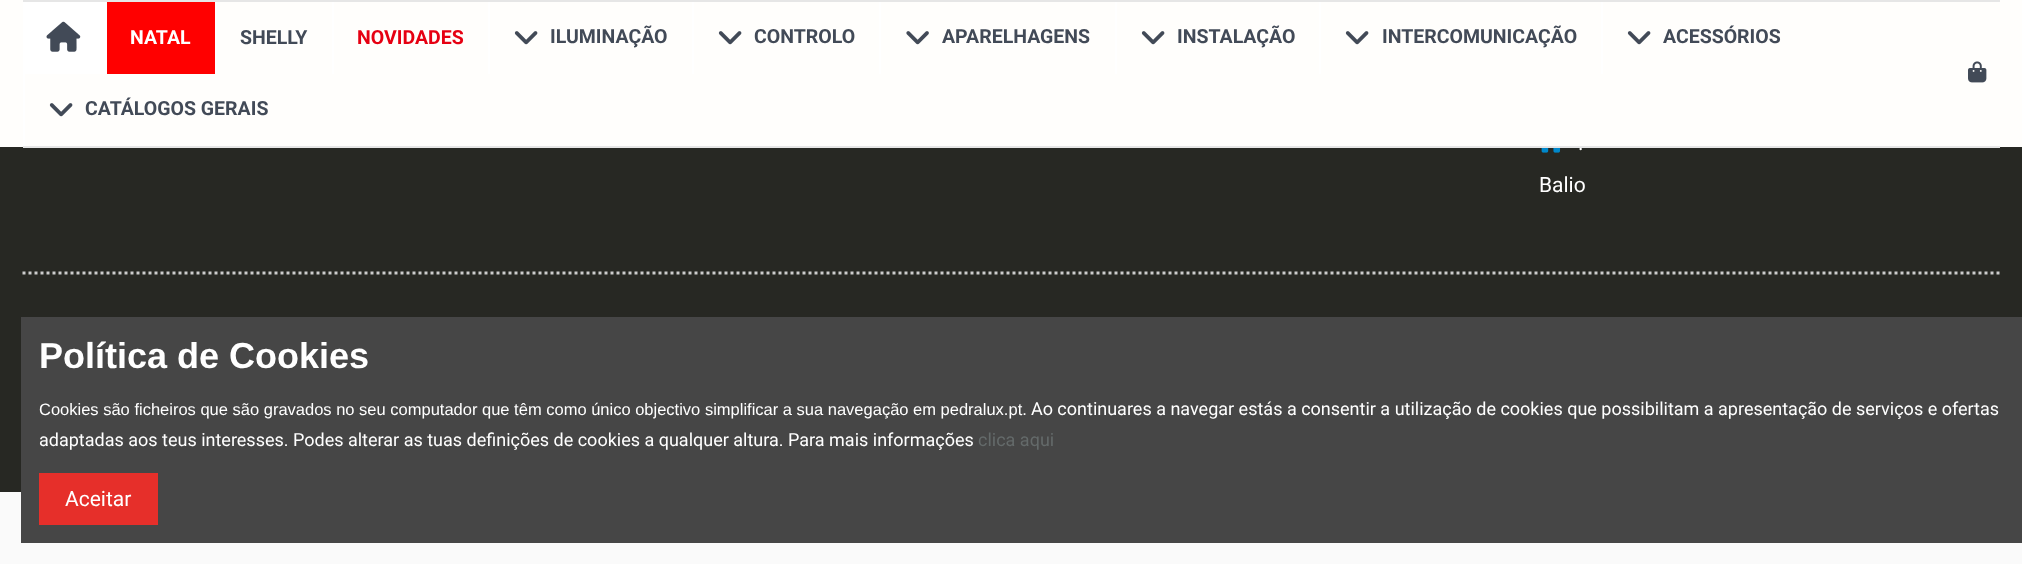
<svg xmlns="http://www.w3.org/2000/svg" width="2022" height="564">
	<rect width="100%" height="100%" fill="#272823" />
	<rect x="0" y="0" width="2022" height="147" fill="#FFFEFC" />
	<rect x="23" y="0" width="1977" height="2" fill="#E6E6E6" />
	<text x="1578" y="150" font-family="Roboto" font-size="21" fill="#FFFFFF">.</text>
	<rect x="23" y="146" width="1977" height="2" fill="#E6E6E6" />
	<rect x="23" y="2" width="84" height="72" fill="#FFFFFF" />
	<image x="46" y="21" width="35" height="31" href="assets/img1.png" />
	<rect x="107" y="2" width="108" height="72" fill="#FF0000" />
	<text x="130" y="44" font-family="Roboto" font-size="19.5" font-weight="700" fill="#FFFFFF">NATAL</text>
	<rect x="215" y="2" width="2" height="72" fill="#FFFFFF" />
	<text x="240" y="44" font-family="Roboto" font-size="19.5" font-weight="700" fill="#424A57">SHELLY</text>
	<rect x="332" y="2" width="2" height="72" fill="#FFFFFF" />
	<text x="357" y="44" font-family="Roboto" font-size="19.5" font-weight="700" fill="#E60012">NOVIDADES</text>
	<rect x="488" y="2" width="2" height="72" fill="#FFFFFF" />
	<image x="514" y="31" width="24" height="14" href="assets/img2.png" />
	<text x="550" y="43" font-family="Roboto" font-size="19.5" font-weight="700" fill="#424A57">ILUMINAÇÃO</text>
	<rect x="692" y="2" width="2" height="72" fill="#FFFFFF" />
	<image x="718" y="31" width="24" height="14" href="assets/img2.png" />
	<text x="754" y="43" font-family="Roboto" font-size="19.5" font-weight="700" fill="#424A57">CONTROLO</text>
	<rect x="879" y="2" width="2" height="72" fill="#FFFFFF" />
	<image x="906" y="31" width="23" height="14" href="assets/img3.png" />
	<text x="942" y="43" font-family="Roboto" font-size="19.5" font-weight="700" fill="#424A57">APARELHAGENS</text>
	<rect x="1115" y="2" width="2" height="72" fill="#FFFFFF" />
	<image x="1141" y="31" width="24" height="14" href="assets/img2.png" />
	<text x="1177" y="43" font-family="Roboto" font-size="19.5" font-weight="700" fill="#424A57">INSTALAÇÃO</text>
	<rect x="1319" y="2" width="2" height="72" fill="#FFFFFF" />
	<image x="1345" y="31" width="24" height="14" href="assets/img2.png" />
	<text x="1382" y="43" font-family="Roboto" font-size="19.5" font-weight="700" fill="#424A57">INTERCOMUNICAÇÃO</text>
	<rect x="1601" y="2" width="2" height="72" fill="#FFFFFF" />
	<image x="1627" y="31" width="24" height="14" href="assets/img2.png" />
	<text x="1663" y="43" font-family="Roboto" font-size="19.5" font-weight="700" fill="#424A57">ACESSÓRIOS</text>
	<rect x="23" y="74" width="2" height="72" fill="#FFFFFF" />
	<image x="49" y="103" width="24" height="14" href="assets/img2.png" />
	<text x="85" y="115" font-family="Roboto" font-size="19.5" font-weight="700" fill="#424A57">CATÁLOGOS GERAIS</text>
	<image x="1968" y="61" width="19" height="22" href="assets/img4.png" />
	<image x="1541" y="148" width="20" height="5" href="assets/img5.png" />
	<text x="1539" y="192" font-family="Roboto" font-size="21" fill="#FFFFFF">Balio</text>
	<path d="M22.5 273H1999.5" fill="none" stroke="#CCCCCC" stroke-width="3" stroke-dasharray="3 3" />
	<rect x="0" y="492" width="2022" height="72" fill="#FAFAFA" />
	<rect x="21" y="317" width="2001" height="226" fill="#464646" />
	<text x="39" y="368" font-family="Liberation Sans" font-size="36" font-weight="700" fill="#FFFFFF">Política de Cookies</text>
	<text x="39" y="415" font-family="Liberation Sans" font-size="16.5" fill="#FFFFFF">Cookies são ficheiros que são gravados no seu computador que têm como único objectivo simplificar a sua navegação em pedralux.pt.</text>
	<g font-family="Roboto" font-size="18" fill="#FFFFFF">
		<text x="1031" y="415">Ao continuares a navegar estás a consentir a utilização de cookies que possibilitam a apresentação de serviços e ofertas</text>
		<text x="39" y="446">adaptadas aos teus interesses. Podes alterar as tuas definições de cookies a qualquer altura. Para mais informações</text>
	</g>
	<text x="978" y="446" font-family="Roboto" font-size="18" fill="#646A6A">clica aqui</text>
	<rect x="39" y="473" width="119" height="52" fill="#E62F2A" />
	<text x="65" y="506" font-family="Roboto" font-size="21" fill="#FFFFFF">Aceitar</text>
</svg>
